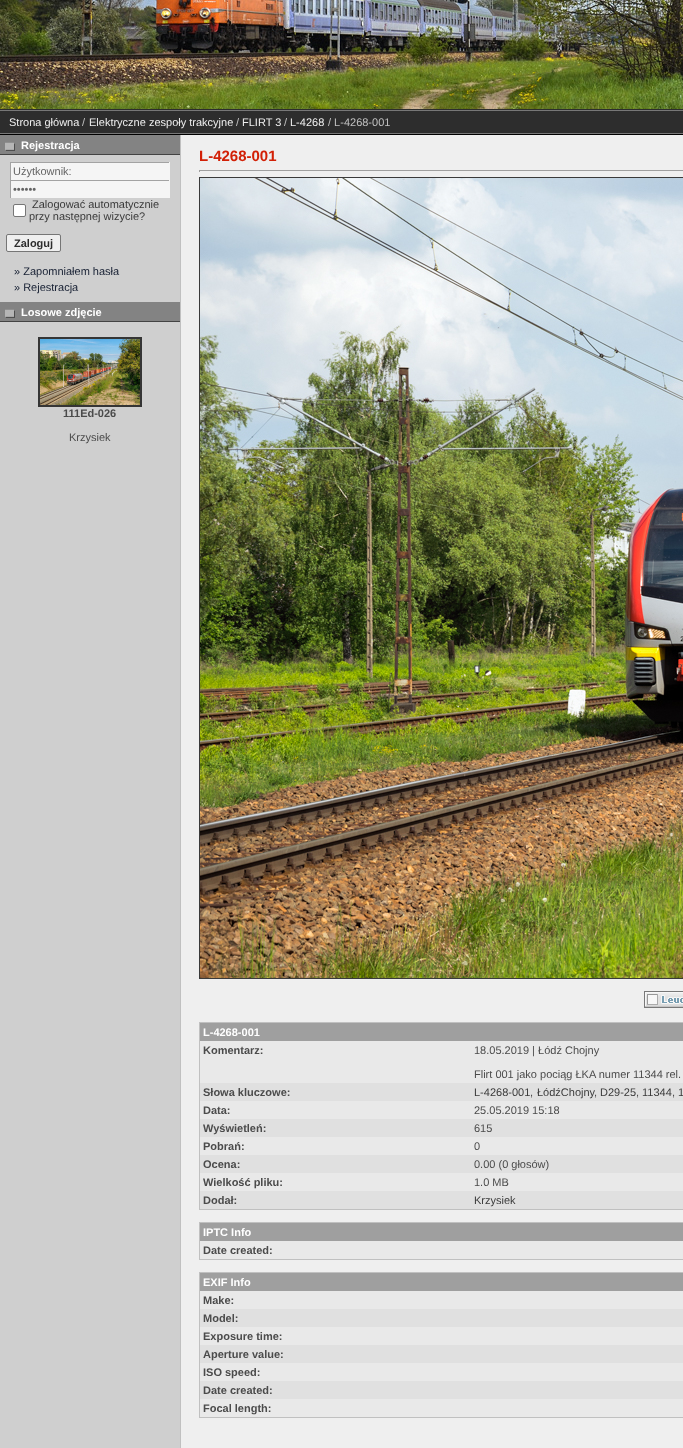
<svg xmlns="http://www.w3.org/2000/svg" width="683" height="1448">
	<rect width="100%" height="100%" fill="#2D2D2D" />
	<image x="0" y="0" width="683" height="109" href="assets/img1.png" />
	<rect x="181" y="135" width="502" height="1313" fill="#EFEFEF" />
	<rect x="0" y="110" width="683" height="1" fill="#777777" />
	<rect x="0" y="133" width="683" height="1" fill="#777777" />
	<text x="9" y="126" font-family="Liberation Sans" font-size="11" fill="#EFEFEF">Strona główna</text>
	<text x="82" y="126" font-family="Liberation Sans" font-size="11" fill="#C0C0C0">/</text>
	<text x="89" y="126" font-family="Liberation Sans" font-size="11" fill="#EFEFEF">Elektryczne zespoły trakcyjne</text>
	<text x="236" y="126" font-family="Liberation Sans" font-size="11" fill="#C0C0C0">/</text>
	<text x="242" y="126" font-family="Liberation Sans" font-size="11" fill="#EFEFEF">FLIRT 3</text>
	<text x="284" y="126" font-family="Liberation Sans" font-size="11" fill="#C0C0C0">/</text>
	<text x="290" y="126" font-family="Liberation Sans" font-size="11" fill="#EFEFEF">L-4268</text>
	<text x="328" y="126" font-family="Liberation Sans" font-size="11" fill="#C0C0C0">/ L-4268-001</text>
	<rect x="0" y="134" width="683" height="1" fill="#000000" />
	<rect x="0" y="155" width="180" height="1293" fill="#CFCFCF" />
	<rect x="0" y="135" width="180" height="19" fill="#838383" />
	<image x="5" y="142" width="10" height="9" href="assets/img2.png" />
	<rect x="0" y="154" width="180" height="1" fill="#434343" />
	<text x="21" y="149" font-family="Liberation Sans" font-size="11" font-weight="700" fill="#FFFFFF">Rejestracja</text>
	<rect x="11" y="163" width="158" height="17" fill="#F5F5F5" />
	<rect x="10" y="162" width="160" height="1" fill="#A3A3A3" />
	<rect x="169" y="162" width="1" height="18" fill="#F5F5F5" />
	<rect x="10" y="162" width="1" height="18" fill="#A3A3A3" />
	<text x="13" y="175" font-family="Liberation Sans" font-size="11" fill="#646464">Użytkownik:</text>
	<rect x="11" y="181" width="158" height="17" fill="#F5F5F5" />
	<rect x="10" y="180" width="160" height="1" fill="#A3A3A3" />
	<rect x="169" y="180" width="1" height="18" fill="#F5F5F5" />
	<rect x="10" y="180" width="1" height="18" fill="#A3A3A3" />
	<text x="13" y="193" font-family="Liberation Sans" font-size="11" fill="#646464">••••••</text>
	<rect x="13.5" y="204.5" width="12" height="12" rx="1.5" fill="#FFFFFF" stroke="#767676" />
	<g font-family="Liberation Sans" font-size="11" fill="#3A3A3A">
		<text x="32" y="208">Zalogować automatycznie</text>
		<text x="29" y="220">przy następnej wizycie?</text>
	</g>
	<rect x="6.5" y="234.5" width="54" height="17" rx="1.5" fill="#EFEFEF" stroke="#767676" />
	<text x="14" y="247" font-family="Liberation Sans" font-size="11" font-weight="700" fill="#2D2D2D">Zaloguj</text>
	<g font-family="Liberation Sans" font-size="11" fill="#172033">
		<text x="14" y="275">» Zapomniałem hasła</text>
		<text x="14" y="291">» Rejestracja</text>
	</g>
	<rect x="0" y="302" width="180" height="19" fill="#838383" />
	<image x="5" y="309" width="10" height="9" href="assets/img2.png" />
	<rect x="0" y="321" width="180" height="1" fill="#434343" />
	<text x="21" y="316" font-family="Liberation Sans" font-size="11" font-weight="700" fill="#FFFFFF">Losowe zdjęcie</text>
	<rect x="39" y="338" width="102" height="68" fill="none" stroke="#353535" stroke-width="2" />
	<image x="40" y="339" width="100" height="66" href="assets/img3.png" />
	<text x="63" y="417" font-family="Liberation Sans" font-size="11" font-weight="700" fill="#4B4B4B">111Ed-026</text>
	<text x="69" y="441" font-family="Liberation Sans" font-size="11" fill="#4B4B4B">Krzysiek</text>
	<rect x="180" y="135" width="1" height="1313" fill="#C0C0C0" />
	<text x="199" y="161" font-family="Liberation Sans" font-size="15" font-weight="700" fill="#D22006">L-4268-001</text>
	<rect x="199" y="170" width="484" height="1" fill="#9F9F9F" />
	<rect x="199" y="170" width="1" height="2" fill="#9F9F9F" />
	<rect x="199.5" y="177.5" width="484" height="801" fill="none" stroke="#3A3A3A" />
	<image x="200" y="178" width="483" height="800" href="assets/img4.png" />
	<image x="644" y="991" width="39" height="17" href="assets/img5.png" />
	<rect x="199" y="1022" width="484" height="188" fill="#C0C0C0" />
	<rect x="200" y="1023" width="483" height="18" fill="#9F9F9F" />
	<text x="203" y="1036" font-family="Liberation Sans" font-size="11" font-weight="700" fill="#FFFFFF">L-4268-001</text>
	<rect x="200" y="1041" width="483" height="42" fill="#E9E9E9" />
	<text x="203" y="1054" font-family="Liberation Sans" font-size="11" font-weight="700" fill="#4B4B4B">Komentarz:</text>
	<g font-family="Liberation Sans" font-size="11" fill="#4B4B4B">
		<text x="474" y="1054">18.05.2019 | Łódź Chojny</text>
		<text x="474" y="1078">Flirt 001 jako pociąg ŁKA numer 11344 rel.</text>
	</g>
	<rect x="200" y="1083" width="483" height="18" fill="#E0E0E0" />
	<text x="203" y="1096" font-family="Liberation Sans" font-size="11" font-weight="700" fill="#4B4B4B">Słowa kluczowe:</text>
	<text x="474" y="1096" font-family="Liberation Sans" font-size="11" fill="#3A3A3A">L-4268-001</text>
	<text x="530" y="1096" font-family="Liberation Sans" font-size="11" fill="#4B4B4B">,</text>
	<g font-family="Liberation Sans" font-size="11" fill="#3A3A3A">
		<text x="537" y="1096">ŁódźChojny</text>
		<text x="600" y="1096">D29-25</text>
		<text x="642" y="1096">11344</text>
		<text x="678" y="1096">1</text>
	</g>
	<g font-family="Liberation Sans" font-size="11" fill="#4B4B4B">
		<text x="594" y="1096">,</text>
		<text x="636" y="1096">,</text>
		<text x="672" y="1096">,</text>
	</g>
	<rect x="200" y="1101" width="483" height="18" fill="#E9E9E9" />
	<text x="203" y="1114" font-family="Liberation Sans" font-size="11" font-weight="700" fill="#4B4B4B">Data:</text>
	<text x="474" y="1114" font-family="Liberation Sans" font-size="11" fill="#4B4B4B">25.05.2019 15:18</text>
	<rect x="200" y="1119" width="483" height="18" fill="#E0E0E0" />
	<text x="203" y="1132" font-family="Liberation Sans" font-size="11" font-weight="700" fill="#4B4B4B">Wyświetleń:</text>
	<text x="474" y="1132" font-family="Liberation Sans" font-size="11" fill="#4B4B4B">615</text>
	<rect x="200" y="1137" width="483" height="18" fill="#E9E9E9" />
	<text x="203" y="1150" font-family="Liberation Sans" font-size="11" font-weight="700" fill="#4B4B4B">Pobrań:</text>
	<text x="474" y="1150" font-family="Liberation Sans" font-size="11" fill="#4B4B4B">0</text>
	<rect x="200" y="1155" width="483" height="18" fill="#E0E0E0" />
	<text x="203" y="1168" font-family="Liberation Sans" font-size="11" font-weight="700" fill="#4B4B4B">Ocena:</text>
	<text x="474" y="1168" font-family="Liberation Sans" font-size="11" fill="#4B4B4B">0.00 (0 głosów)</text>
	<rect x="200" y="1173" width="483" height="18" fill="#E9E9E9" />
	<text x="203" y="1186" font-family="Liberation Sans" font-size="11" font-weight="700" fill="#4B4B4B">Wielkość pliku:</text>
	<text x="474" y="1186" font-family="Liberation Sans" font-size="11" fill="#4B4B4B">1.0 MB</text>
	<rect x="200" y="1191" width="483" height="18" fill="#E0E0E0" />
	<text x="203" y="1204" font-family="Liberation Sans" font-size="11" font-weight="700" fill="#4B4B4B">Dodał:</text>
	<text x="474" y="1204" font-family="Liberation Sans" font-size="11" fill="#3A3A3A">Krzysiek</text>
	<rect x="199" y="1222" width="484" height="38" fill="#C0C0C0" />
	<rect x="200" y="1223" width="483" height="18" fill="#9F9F9F" />
	<text x="203" y="1236" font-family="Liberation Sans" font-size="11" font-weight="700" fill="#FFFFFF">IPTC Info</text>
	<rect x="200" y="1241" width="483" height="18" fill="#E9E9E9" />
	<text x="203" y="1254" font-family="Liberation Sans" font-size="11" font-weight="700" fill="#4B4B4B">Date created:</text>
	<rect x="199" y="1272" width="484" height="146" fill="#C0C0C0" />
	<rect x="200" y="1273" width="483" height="18" fill="#9F9F9F" />
	<text x="203" y="1286" font-family="Liberation Sans" font-size="11" font-weight="700" fill="#FFFFFF">EXIF Info</text>
	<rect x="200" y="1291" width="483" height="18" fill="#E9E9E9" />
	<text x="203" y="1304" font-family="Liberation Sans" font-size="11" font-weight="700" fill="#4B4B4B">Make:</text>
	<rect x="200" y="1309" width="483" height="18" fill="#E0E0E0" />
	<text x="203" y="1322" font-family="Liberation Sans" font-size="11" font-weight="700" fill="#4B4B4B">Model:</text>
	<rect x="200" y="1327" width="483" height="18" fill="#E9E9E9" />
	<text x="203" y="1340" font-family="Liberation Sans" font-size="11" font-weight="700" fill="#4B4B4B">Exposure time:</text>
	<rect x="200" y="1345" width="483" height="18" fill="#E0E0E0" />
	<text x="203" y="1358" font-family="Liberation Sans" font-size="11" font-weight="700" fill="#4B4B4B">Aperture value:</text>
	<rect x="200" y="1363" width="483" height="18" fill="#E9E9E9" />
	<text x="203" y="1376" font-family="Liberation Sans" font-size="11" font-weight="700" fill="#4B4B4B">ISO speed:</text>
	<rect x="200" y="1381" width="483" height="18" fill="#E0E0E0" />
	<text x="203" y="1394" font-family="Liberation Sans" font-size="11" font-weight="700" fill="#4B4B4B">Date created:</text>
	<rect x="200" y="1399" width="483" height="18" fill="#E9E9E9" />
	<text x="203" y="1412" font-family="Liberation Sans" font-size="11" font-weight="700" fill="#4B4B4B">Focal length:</text>
</svg>
